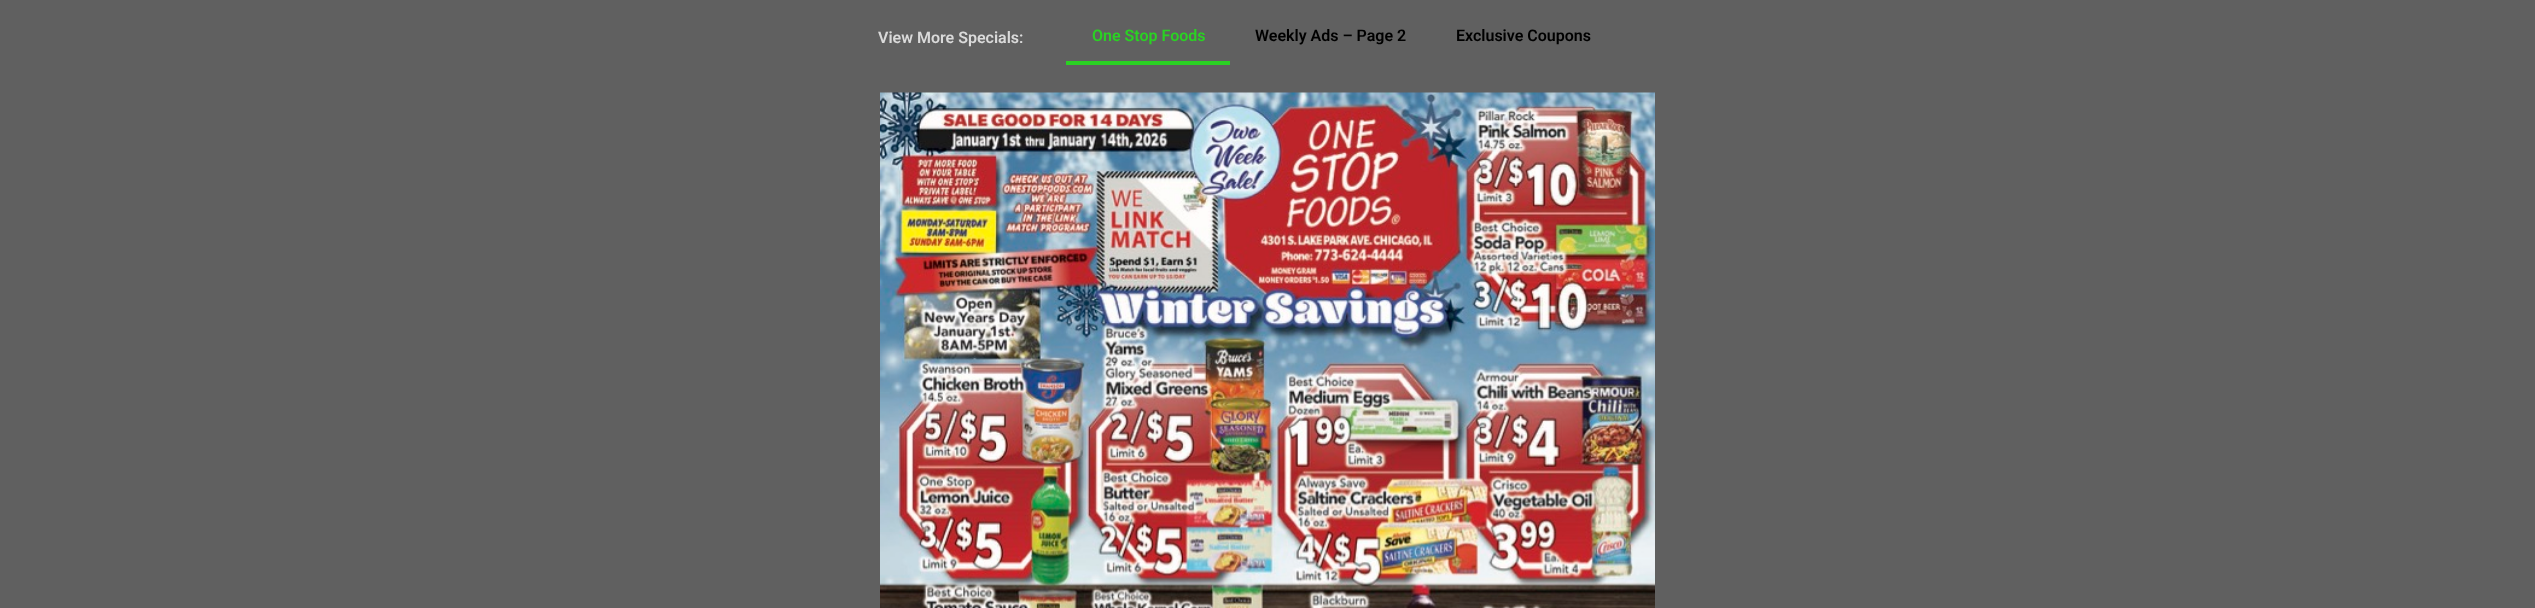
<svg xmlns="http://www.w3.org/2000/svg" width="2535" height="608">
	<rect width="100%" height="100%" fill="#606060" />
	<text x="878" y="43" font-family="Roboto" font-size="16" font-weight="600" fill="#DADADA">View More Specials:</text>
	<text x="1092" y="41" font-family="Roboto" font-size="16" font-weight="600" fill="#2AD223">One Stop Foods</text>
	<rect x="1066" y="61" width="164" height="4" fill="#2AD223" />
	<g font-family="Roboto" font-size="16" font-weight="600" fill="#000000">
		<text x="1255" y="41">Weekly Ads – Page 2</text>
		<text x="1456" y="41">Exclusive Coupons</text>
	</g>
	<image x="880" y="92" width="775" height="516" href="assets/img1.png" />
</svg>
